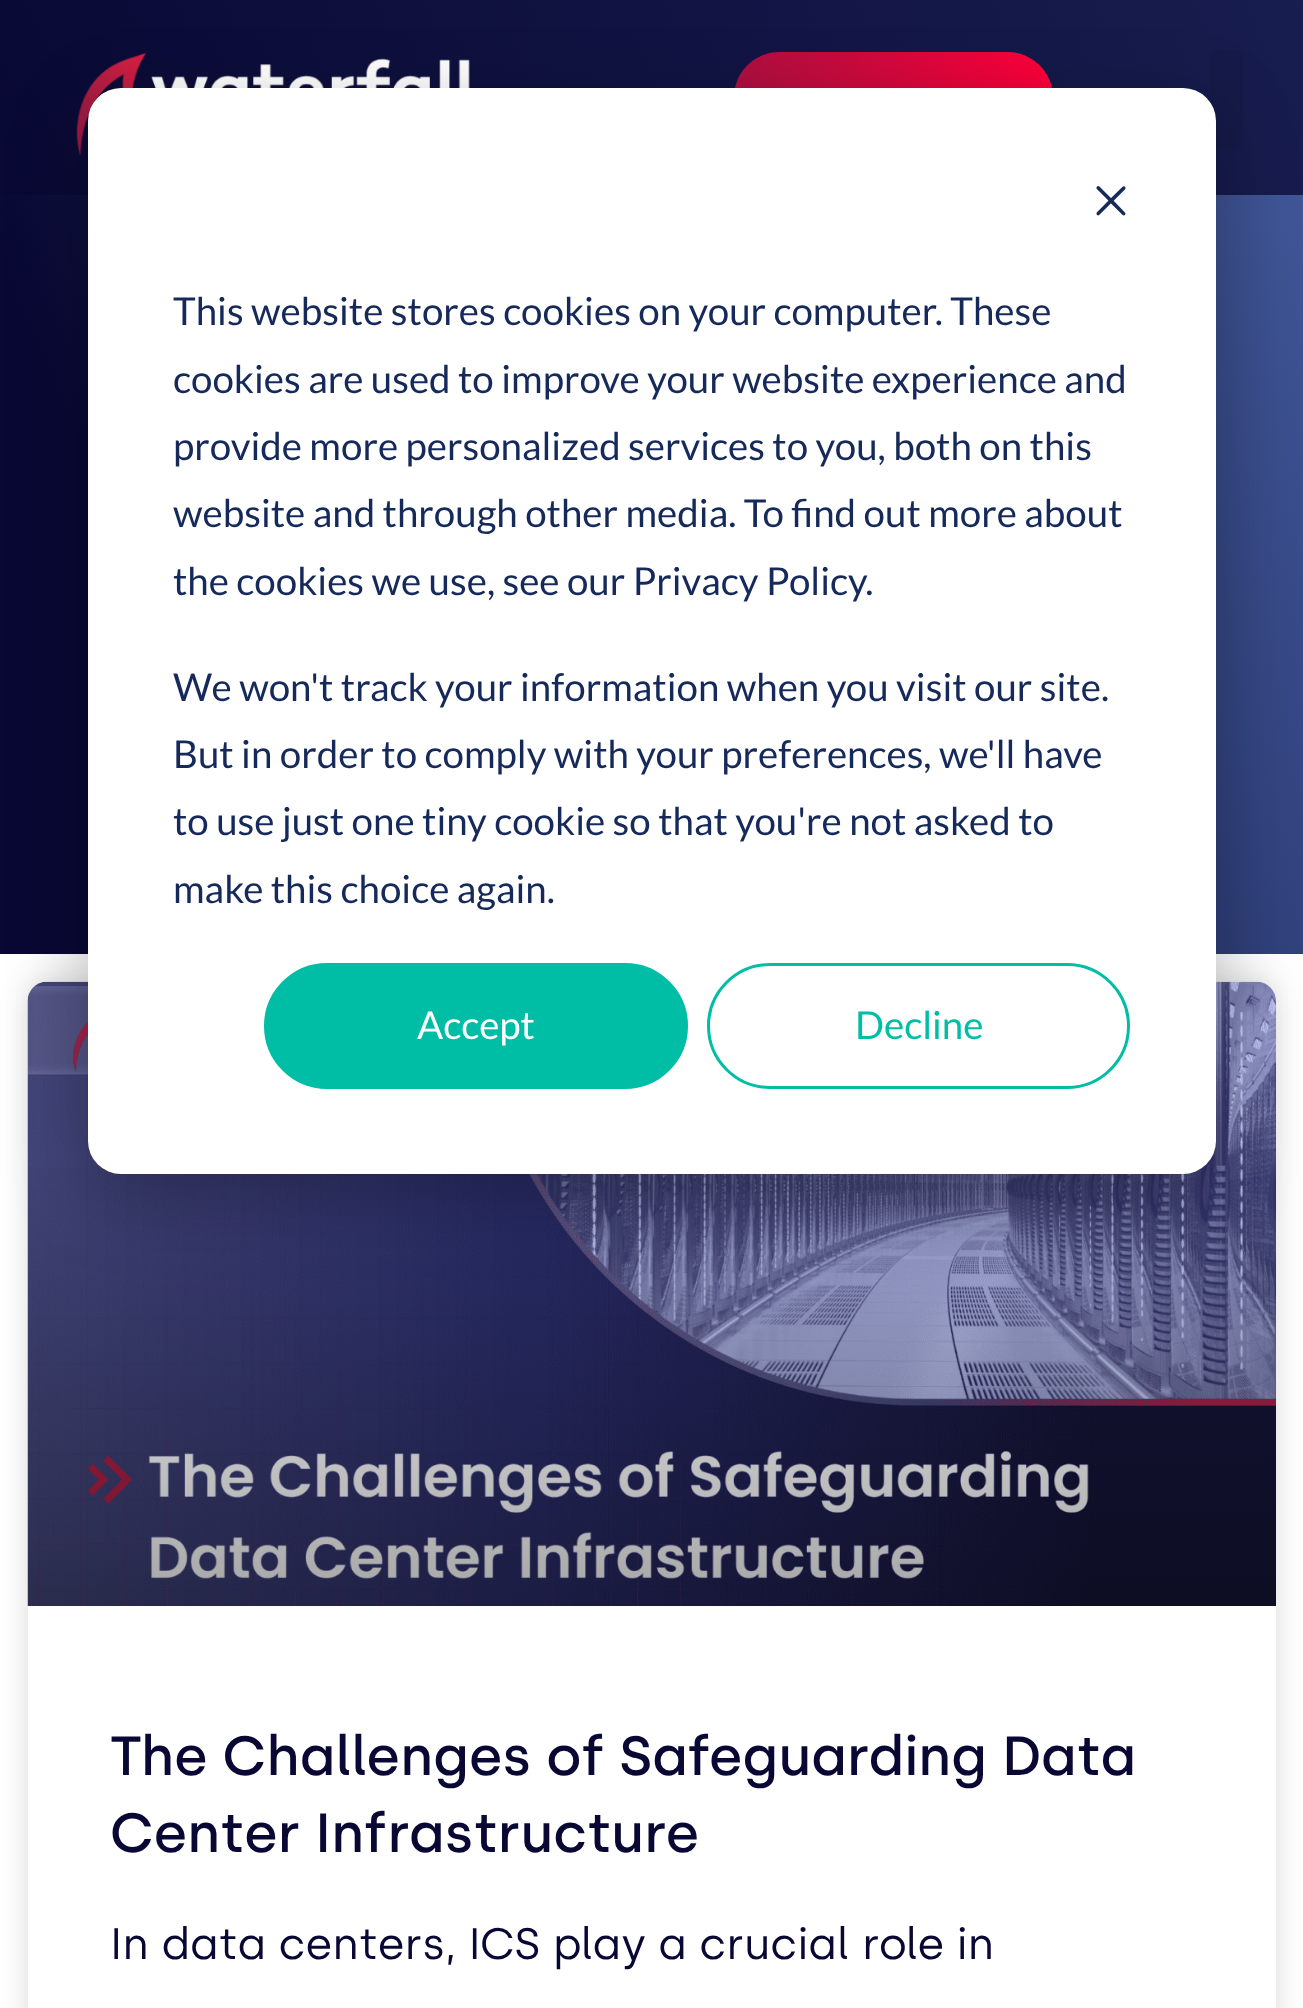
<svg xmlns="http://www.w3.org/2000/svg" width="1303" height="2008">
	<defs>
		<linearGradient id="g1" gradientUnits="userSpaceOnUse" x1="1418" y1="6.5" x2="-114" y2="703"><stop offset="0" stop-color="#191F51" /><stop offset="0.83" stop-color="#090834" /></linearGradient>
		<linearGradient id="g2" gradientUnits="userSpaceOnUse" x1="734" y1="98" x2="1053" y2="98"><stop offset="0" stop-color="#AE0F40" /><stop offset="1" stop-color="#FF003A" /></linearGradient>
		<linearGradient id="g3" gradientUnits="userSpaceOnUse" x1="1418" y1="6.5" x2="-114" y2="703"><stop offset="0" stop-color="#4862A6" /><stop offset="0.83" stop-color="#090834" /></linearGradient>
		<linearGradient id="g4" gradientUnits="userSpaceOnUse" x1="652" y1="1606" x2="652" y2="982"><stop offset="0" stop-color="#000000" stop-opacity="0.35" /><stop offset="0.75" stop-color="#000000" stop-opacity="0" /></linearGradient>
	</defs>
	<rect width="100%" height="100%" fill="#FFFFFF" />
	<rect x="0" y="0" width="1303" height="195" fill="url(#g1)" />
	<image x="76" y="52" width="394" height="104" href="assets/img1.png" />
	<rect x="734" y="52" width="319" height="91" rx="45.5" fill="url(#g2)" />
	<rect x="1210" y="50" width="33" height="99" rx="8" fill="#151A48" />
	<rect x="0" y="195" width="1303" height="759" fill="url(#g3)" />
	<rect x="28" y="982" width="1248" height="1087" rx="19" fill="#000000" fill-opacity="0.15" filter="blur(14px)" />
	<rect x="28" y="982" width="1248" height="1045" rx="19" fill="#FFFFFF" />
	<image x="27" y="981" width="1249" height="625" href="assets/img3.png" />
	<rect x="28" y="1167" width="1248" height="439" fill="url(#g4)" />
	<rect x="88" y="110" width="1128" height="1086" rx="33" fill="#000000" fill-opacity="0.28" filter="blur(38.5px)" />
	<rect x="88" y="88" width="1128" height="1086" rx="33" fill="#FFFFFF" />
	<image x="1096" y="186" width="30" height="30" href="assets/img2.png" />
	<g font-family="Lato" font-size="38.5" fill="#15295A">
		<text x="173" y="325">This website stores cookies on your computer. These</text>
		<text x="173" y="393">cookies are used to improve your website experience and</text>
		<text x="173" y="460">provide more personalized services to you, both on this</text>
		<text x="173" y="527">website and through other media. To find out more about</text>
		<text x="173" y="595">the cookies we use, see our Privacy Policy.</text>
		<text x="173" y="701">We won't track your information when you visit our site.</text>
		<text x="173" y="768">But in order to comply with your preferences, we'll have</text>
		<text x="173" y="835">to use just one tiny cookie so that you're not asked to</text>
		<text x="173" y="903">make this choice again.</text>
	</g>
	<rect x="265.5" y="964.5" width="421" height="123" rx="61.5" fill="#00BDA5" stroke="#00BDA5" stroke-width="3" />
	<text x="417" y="1039" font-family="Lato" font-size="38.5" fill="#FFFFFF">Accept</text>
	<rect x="708.5" y="964.5" width="420" height="123" rx="61.5" fill="none" stroke="#00BDA5" stroke-width="3" />
	<text x="855" y="1039" font-family="Lato" font-size="38.5" fill="#00BDA5">Decline</text>
	<g font-family="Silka" font-size="55" font-weight="500" fill="#090834">
		<text x="110" y="1775">The Challenges of Safeguarding Data</text>
		<text x="110" y="1852">Center Infrastructure</text>
	</g>
	<text x="110" y="1959" font-family="Silka" font-size="44" fill="#090834">In data centers, ICS play a crucial role in</text>
</svg>
